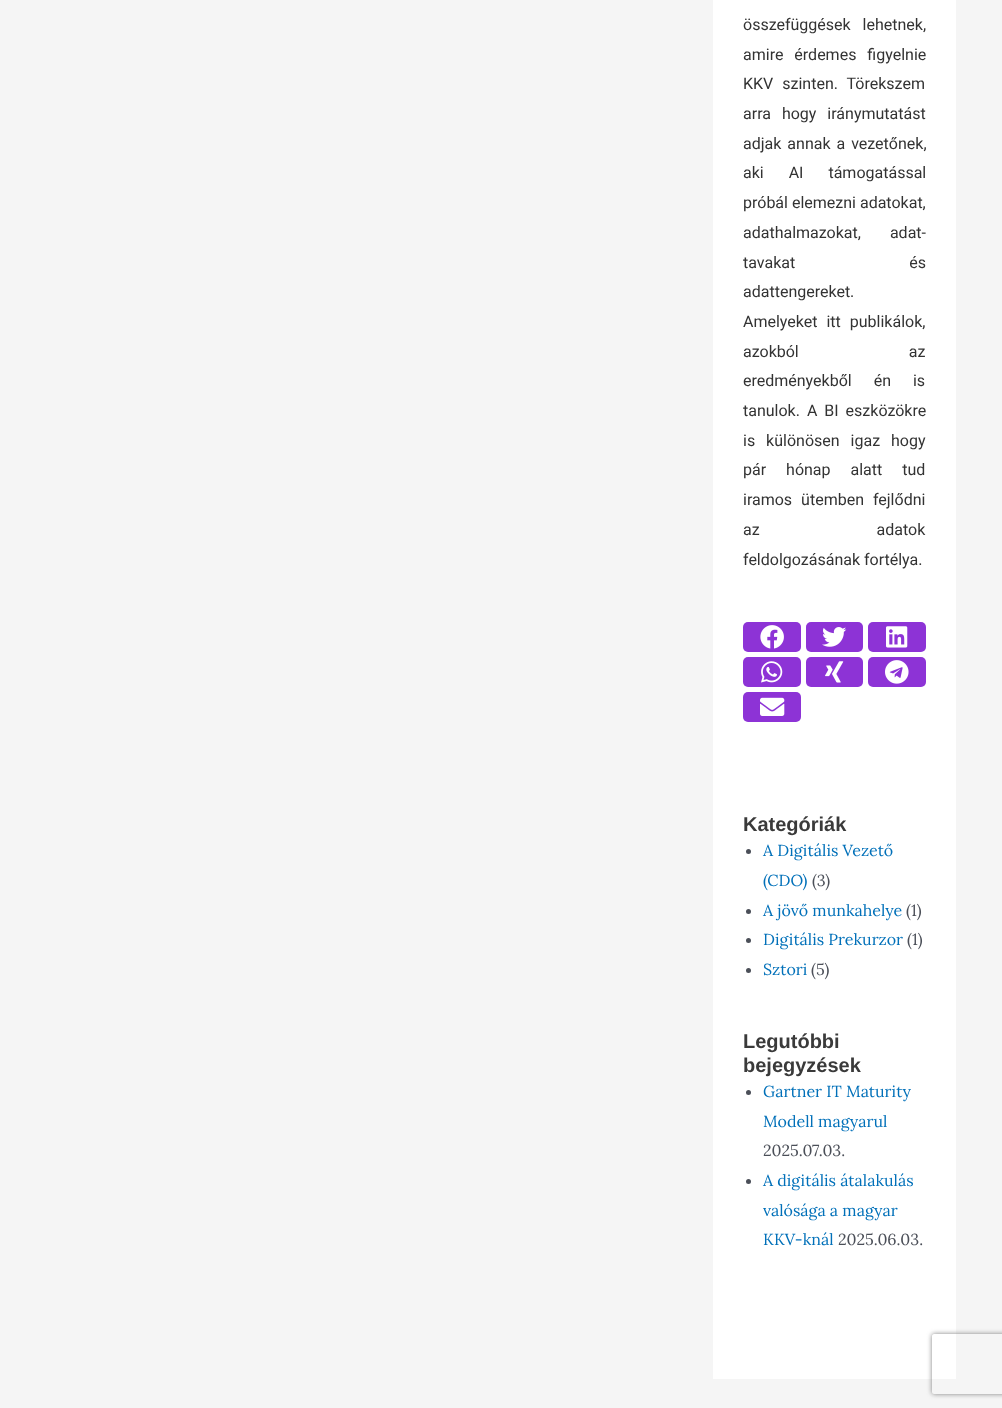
<svg xmlns="http://www.w3.org/2000/svg" width="1002" height="1408">
	<defs>
		<clipPath id="clip1"><path d="M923 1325H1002V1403H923ZM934 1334H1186C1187 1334 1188 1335 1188 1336V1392C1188 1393 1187 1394 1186 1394H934C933 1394 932 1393 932 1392V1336C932 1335 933 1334 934 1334Z" clip-rule="evenodd" /></clipPath>
	</defs>
	<rect width="100%" height="100%" fill="#F5F5F5" />
	<rect x="713" y="0" width="243" height="1379" fill="#FFFFFF" />
	<g font-family="Roboto" font-size="16" fill="#333333">
		<text x="743" y="30" word-spacing="8">összefüggések lehetnek,</text>
		<text x="743" y="60" word-spacing="7">amire érdemes figyelnie</text>
		<text x="743" y="89" word-spacing="5">KKV szinten. Törekszem</text>
		<text x="743" y="119" word-spacing="7">arra hogy iránymutatást</text>
		<text x="743" y="149" word-spacing="2">adjak annak a vezetőnek,</text>
		<text x="743" y="178" word-spacing="21">aki AI támogatással</text>
		<text x="743" y="208">próbál elemezni adatokat,</text>
		<text x="743" y="238" word-spacing="25">adathalmazokat, adat-</text>
		<text x="743" y="268" word-spacing="110">tavakat és</text>
		<text x="743" y="297">adattengereket.</text>
		<text x="743" y="327" word-spacing="5">Amelyeket itt publikálok,</text>
		<text x="743" y="357" word-spacing="106">azokból az</text>
		<text x="743" y="386" word-spacing="18">eredményekből én is</text>
		<text x="743" y="416" word-spacing="3">tanulok. A BI eszközökre</text>
		<text x="743" y="446" word-spacing="7">is különösen igaz hogy</text>
		<text x="743" y="475" word-spacing="16">pár hónap alatt tud</text>
		<text x="743" y="505" word-spacing="5">iramos ütemben fejlődni</text>
		<text x="743" y="535" word-spacing="113">az adatok</text>
		<text x="743" y="565">feldolgozásának fortélya.</text>
	</g>
	<rect x="743" y="622" width="58" height="30" rx="5" fill="#8D33D6" />
	<image x="760" y="625" width="24" height="24" href="assets/img1.png" />
	<rect x="806" y="622" width="57" height="30" rx="5" fill="#8D33D6" />
	<image x="822" y="627" width="25" height="20" href="assets/img2.png" />
	<rect x="868" y="622" width="58" height="30" rx="5" fill="#8D33D6" />
	<image x="886" y="626" width="22" height="22" href="assets/img3.png" />
	<rect x="743" y="657" width="58" height="30" rx="5" fill="#8D33D6" />
	<image x="761" y="661" width="22" height="22" href="assets/img4.png" />
	<rect x="806" y="657" width="57" height="30" rx="5" fill="#8D33D6" />
	<image x="825" y="661" width="19" height="22" href="assets/img5.png" />
	<rect x="868" y="657" width="58" height="30" rx="5" fill="#8D33D6" />
	<image x="885" y="660" width="24" height="24" href="assets/img6.png" />
	<rect x="743" y="692" width="58" height="30" rx="5" fill="#8D33D6" />
	<image x="760" y="697" width="25" height="19" href="assets/img7.png" />
	<text x="743" y="831" font-family="Liberation Sans" font-size="20" font-weight="700" fill="#3A3A3A">Kategóriák</text>
	<circle cx="748.5" cy="851.5" r="2.5" fill="#4B4F58" />
	<g font-family="Lora" font-size="16" fill="#0170B9">
		<text x="763" y="856">A Digitális Vezető</text>
		<text x="763" y="886">(CDO)</text>
	</g>
	<text x="812" y="886" font-family="Lora" font-size="16" fill="#4B4F58">(3)</text>
	<circle cx="748.5" cy="911.5" r="2.5" fill="#4B4F58" />
	<text x="763" y="916" font-family="Lora" font-size="16" fill="#0170B9">A jövő munkahelye</text>
	<text x="906" y="916" font-family="Lora" font-size="16" fill="#4B4F58">(1)</text>
	<circle cx="748.5" cy="940.5" r="2.5" fill="#4B4F58" />
	<text x="763" y="945" font-family="Lora" font-size="16" fill="#0170B9">Digitális Prekurzor</text>
	<text x="907" y="945" font-family="Lora" font-size="16" fill="#4B4F58">(1)</text>
	<circle cx="748.5" cy="970.5" r="2.5" fill="#4B4F58" />
	<text x="763" y="975" font-family="Lora" font-size="16" fill="#0170B9">Sztori</text>
	<text x="811" y="975" font-family="Lora" font-size="16" fill="#4B4F58">(5)</text>
	<g font-family="Liberation Sans" font-size="20" font-weight="700" fill="#3A3A3A">
		<text x="743" y="1048">Legutóbbi</text>
		<text x="743" y="1072">bejegyzések</text>
	</g>
	<circle cx="748.5" cy="1092.5" r="2.5" fill="#4B4F58" />
	<g font-family="Lora" font-size="16" fill="#0170B9">
		<text x="763" y="1097">Gartner IT Maturity</text>
		<text x="763" y="1127">Modell magyarul</text>
	</g>
	<text x="763" y="1156" font-family="Lora" font-size="16" fill="#4B4F58">2025.07.03.</text>
	<circle cx="748.5" cy="1181.5" r="2.5" fill="#4B4F58" />
	<g font-family="Lora" font-size="16" fill="#0170B9">
		<text x="763" y="1186">A digitális átalakulás</text>
		<text x="763" y="1216">valósága a magyar</text>
		<text x="763" y="1245">KKV-knál</text>
	</g>
	<text x="838" y="1245" font-family="Lora" font-size="16" fill="#4B4F58">2025.06.03.</text>
	<g clip-path="url(#clip1)">
		<rect x="932" y="1334" width="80" height="60" rx="2" fill="#808080" filter="blur(2.5px)" />
	</g>
</svg>
